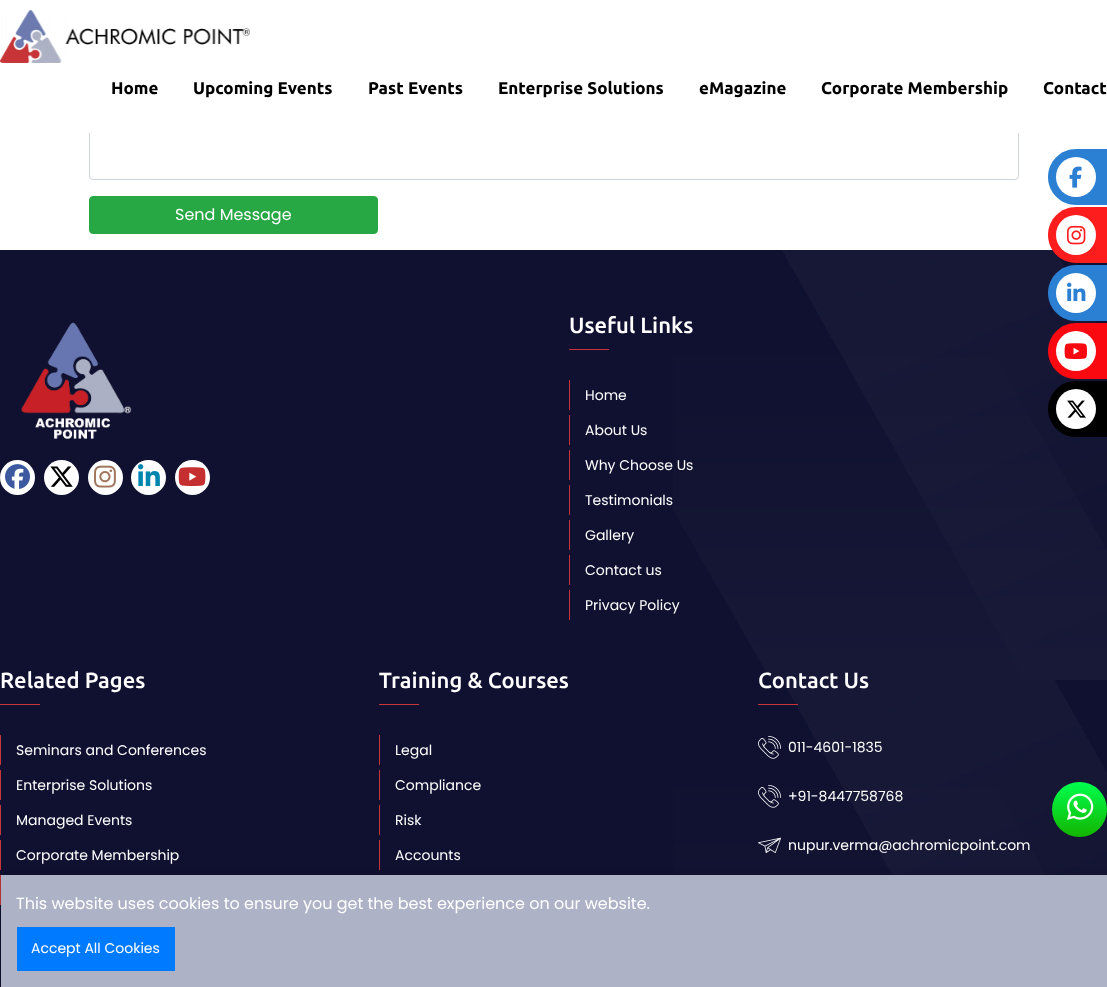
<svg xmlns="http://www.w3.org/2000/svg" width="1107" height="987">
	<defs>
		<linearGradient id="g1" gradientUnits="userSpaceOnUse" x1="1080" y1="782" x2="1080" y2="837"><stop offset="0" stop-color="#00FF4E" /><stop offset="1" stop-color="#13B500" /></linearGradient>
	</defs>
	<rect width="100%" height="100%" fill="#FFFFFF" />
	<rect x="89.5" y="46.5" width="929" height="133" rx="3.5" fill="none" stroke="#CED4DA" />
	<rect x="89" y="46" width="930" height="87" fill="#FFFFFF" />
	<image x="0" y="10" width="250" height="53" href="assets/img1.png" />
	<g font-family="Ubuntu" font-size="17" font-weight="700" fill="#000000">
		<text x="111" y="94">Home</text>
		<text x="193" y="94">Upcoming Events</text>
		<text x="368" y="94">Past Events</text>
		<text x="498" y="94">Enterprise Solutions</text>
		<text x="699" y="94">eMagazine</text>
		<text x="821" y="94">Corporate Membership</text>
		<text x="1043" y="94">Contact</text>
	</g>
	<rect x="89.5" y="196.5" width="288" height="37" rx="3.5" fill="#28A745" stroke="#28A745" />
	<text x="175" y="220" font-family="Poppins" font-size="16" fill="#FFFFFF">Send Message</text>
	<rect x="0" y="250" width="673" height="737" fill="#101130" />
	<image x="673" y="250" width="434" height="625" href="assets/img2.png" />
	<image x="21" y="322" width="111" height="117" href="assets/img3.png" />
	<circle cx="17.5" cy="477.5" r="17.5" fill="#FFFFFF" />
	<image x="5" y="464" width="25" height="25" href="assets/img4.png" />
	<circle cx="61.5" cy="477.5" r="17.5" fill="#FFFFFF" />
	<image x="50" y="466" width="23" height="21" href="assets/img5.png" />
	<circle cx="105.5" cy="477.5" r="17.5" fill="#FFFFFF" />
	<image x="94" y="465" width="22" height="23" href="assets/img6.png" />
	<circle cx="148.5" cy="477.5" r="17.5" fill="#FFFFFF" />
	<image x="138" y="464" width="22" height="22" href="assets/img7.png" />
	<circle cx="192.5" cy="477.5" r="17.5" fill="#FFFFFF" />
	<image x="178" y="467" width="28" height="19" href="assets/img8.png" />
	<text x="569" y="333" font-family="Ubuntu" font-size="22" font-weight="500" fill="#FFFFFF">Useful Links</text>
	<rect x="569" y="349" width="40" height="1" fill="#C73538" />
	<rect x="569" y="380" width="1" height="30" fill="#C73538" />
	<text x="585" y="400" font-family="Poppins" font-size="14" fill="#FFFFFF">Home</text>
	<rect x="569" y="415" width="1" height="30" fill="#C73538" />
	<text x="585" y="435" font-family="Poppins" font-size="14" fill="#FFFFFF">About Us</text>
	<rect x="569" y="450" width="1" height="30" fill="#C73538" />
	<text x="585" y="470" font-family="Poppins" font-size="14" fill="#FFFFFF">Why Choose Us</text>
	<rect x="569" y="485" width="1" height="30" fill="#C73538" />
	<text x="585" y="505" font-family="Poppins" font-size="14" fill="#FFFFFF">Testimonials</text>
	<rect x="569" y="520" width="1" height="30" fill="#C73538" />
	<text x="585" y="540" font-family="Poppins" font-size="14" fill="#FFFFFF">Gallery</text>
	<rect x="569" y="555" width="1" height="30" fill="#C73538" />
	<text x="585" y="575" font-family="Poppins" font-size="14" fill="#FFFFFF">Contact us</text>
	<rect x="569" y="590" width="1" height="30" fill="#C73538" />
	<text x="585" y="610" font-family="Poppins" font-size="14" fill="#FFFFFF">Privacy Policy</text>
	<text x="0" y="688" font-family="Ubuntu" font-size="22" font-weight="500" fill="#FFFFFF">Related Pages</text>
	<rect x="0" y="704" width="40" height="1" fill="#C73538" />
	<rect x="0" y="735" width="1" height="30" fill="#C73538" />
	<text x="16" y="755" font-family="Poppins" font-size="14" fill="#FFFFFF">Seminars and Conferences</text>
	<rect x="0" y="770" width="1" height="30" fill="#C73538" />
	<text x="16" y="790" font-family="Poppins" font-size="14" fill="#FFFFFF">Enterprise Solutions</text>
	<rect x="0" y="805" width="1" height="30" fill="#C73538" />
	<text x="16" y="825" font-family="Poppins" font-size="14" fill="#FFFFFF">Managed Events</text>
	<rect x="0" y="840" width="1" height="30" fill="#C73538" />
	<text x="16" y="860" font-family="Poppins" font-size="14" fill="#FFFFFF">Corporate Membership</text>
	<rect x="0" y="875" width="1" height="30" fill="#C73538" />
	<text x="379" y="688" font-family="Ubuntu" font-size="22" font-weight="500" fill="#FFFFFF">Training &amp; Courses</text>
	<rect x="379" y="704" width="40" height="1" fill="#C73538" />
	<rect x="379" y="735" width="1" height="30" fill="#C73538" />
	<text x="395" y="755" font-family="Poppins" font-size="14" fill="#FFFFFF">Legal</text>
	<rect x="379" y="770" width="1" height="30" fill="#C73538" />
	<text x="395" y="790" font-family="Poppins" font-size="14" fill="#FFFFFF">Compliance</text>
	<rect x="379" y="805" width="1" height="30" fill="#C73538" />
	<text x="395" y="825" font-family="Poppins" font-size="14" fill="#FFFFFF">Risk</text>
	<rect x="379" y="840" width="1" height="30" fill="#C73538" />
	<text x="395" y="860" font-family="Poppins" font-size="14" fill="#FFFFFF">Accounts</text>
	<text x="758" y="688" font-family="Ubuntu" font-size="22" font-weight="500" fill="#FFFFFF">Contact Us</text>
	<rect x="758" y="704" width="40" height="1" fill="#C73538" />
	<image x="758" y="736" width="23" height="23" href="assets/img9.png" />
	<text x="788" y="752" font-family="Poppins" font-size="14" fill="#FFFFFF">011-4601-1835</text>
	<image x="758" y="785" width="23" height="23" href="assets/img10.png" />
	<text x="788" y="801" font-family="Poppins" font-size="14" fill="#FFFFFF">+91-8447758768</text>
	<image x="758" y="837" width="23" height="16" href="assets/img11.png" />
	<text x="788" y="850" font-family="Poppins" font-size="14" fill="#FFFFFF">nupur.verma@achromicpoint.com</text>
	<path d="M1076 149H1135V205H1076C1060.5 205 1048 192.5 1048 177C1048 161.5 1060.5 149 1076 149Z" fill="#2C80D3" />
	<circle cx="1076" cy="177" r="20" fill="#FFFFFF" />
	<image x="1069" y="166" width="13" height="22" href="assets/img12.png" />
	<path d="M1076 207H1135V263H1076C1060.5 263 1048 250.5 1048 235C1048 219.5 1060.5 207 1076 207Z" fill="#FD1D1D" />
	<circle cx="1076" cy="235" r="20" fill="#FFFFFF" />
	<image x="1067" y="225" width="19" height="20" href="assets/img13.png" />
	<path d="M1076 265H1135V321H1076C1060.5 321 1048 308.5 1048 293C1048 277.5 1060.5 265 1076 265Z" fill="#2C80D3" />
	<circle cx="1076" cy="293" r="20" fill="#FFFFFF" />
	<image x="1067" y="282" width="19" height="19" href="assets/img14.png" />
	<path d="M1076 323H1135V379H1076C1060.5 379 1048 366.5 1048 351C1048 335.5 1060.5 323 1076 323Z" fill="#FA0910" />
	<circle cx="1076" cy="351" r="20" fill="#FFFFFF" />
	<image x="1064" y="343" width="23" height="16" href="assets/img15.png" />
	<path d="M1076 381H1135V437H1076C1060.5 437 1048 424.5 1048 409C1048 393.5 1060.5 381 1076 381Z" fill="#000000" />
	<circle cx="1076" cy="409" r="20" fill="#FFFFFF" />
	<image x="1067" y="400" width="19" height="18" href="assets/img16.png" />
	<circle cx="1079.5" cy="809.5" r="27.5" fill="url(#g1)" />
	<image x="1067" y="793" width="27" height="27" href="assets/img17.png" />
	<rect x="1" y="877" width="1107" height="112" fill="#000000" fill-opacity="0.2" filter="blur(5px)" />
	<rect x="1" y="875" width="1106" height="112" fill="#AEB2C6" />
	<text x="16" y="909" font-family="Poppins" font-size="16" fill="#FFFFFF">This website uses cookies to ensure you get the best experience on our website.</text>
	<rect x="17" y="927" width="158" height="44" fill="#007BFF" />
	<text x="31" y="953" font-family="Poppins" font-size="14" fill="#FFFFFF">Accept All Cookies</text>
</svg>
